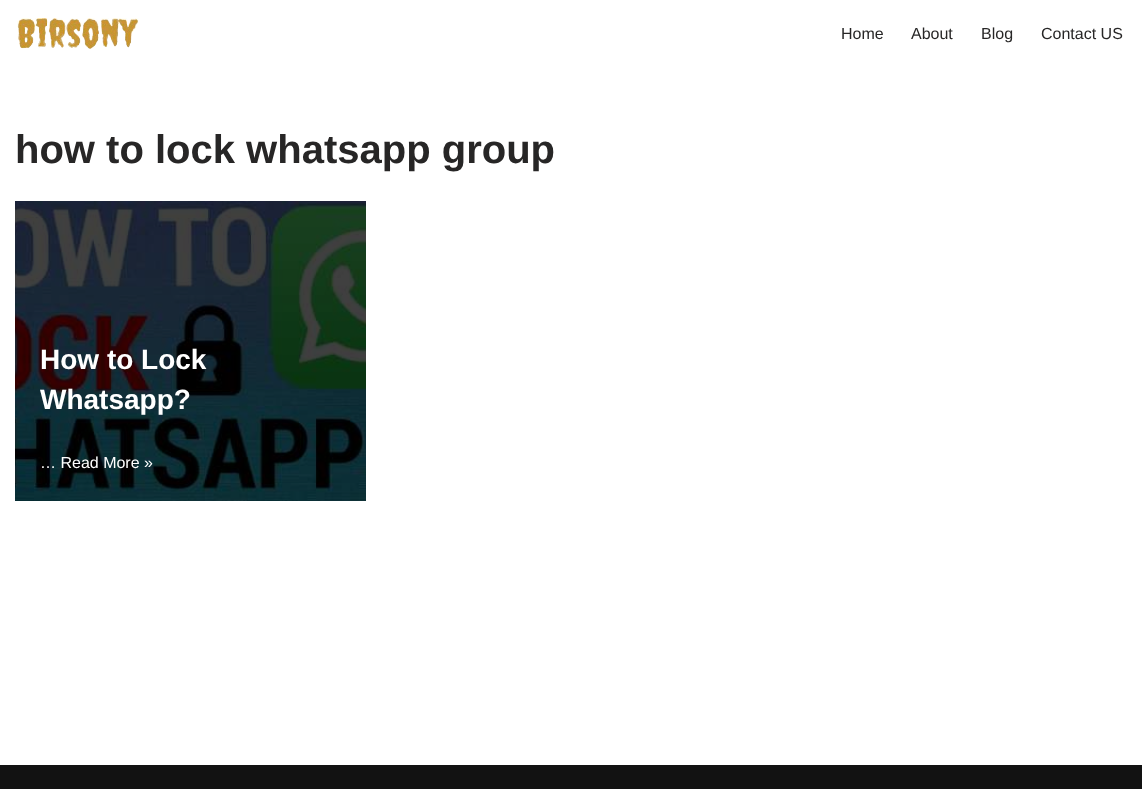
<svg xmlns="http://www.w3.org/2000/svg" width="1142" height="789">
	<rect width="100%" height="100%" fill="#FFFFFF" />
	<image x="17" y="18" width="122" height="31" href="assets/img1.png" />
	<g font-family="Liberation Sans" font-size="16" fill="#272626">
		<text x="841" y="39">Home</text>
		<text x="911" y="39">About</text>
		<text x="981" y="39">Blog</text>
		<text x="1041" y="39">Contact US</text>
	</g>
	<text x="15" y="163" font-family="Liberation Sans" font-size="40" font-weight="700" fill="#272626">how to lock whatsapp group</text>
	<image x="15" y="201" width="351" height="300" href="assets/img2.png" />
	<g font-family="Liberation Sans" font-size="28" font-weight="700" fill="#FFFFFF">
		<text x="40" y="369">How to Lock</text>
		<text x="40" y="409">Whatsapp?</text>
	</g>
	<text x="40" y="468" font-family="Liberation Sans" font-size="16" fill="#FFFFFF">… Read More »</text>
	<rect x="0" y="765" width="1142" height="24" fill="#121212" />
</svg>
